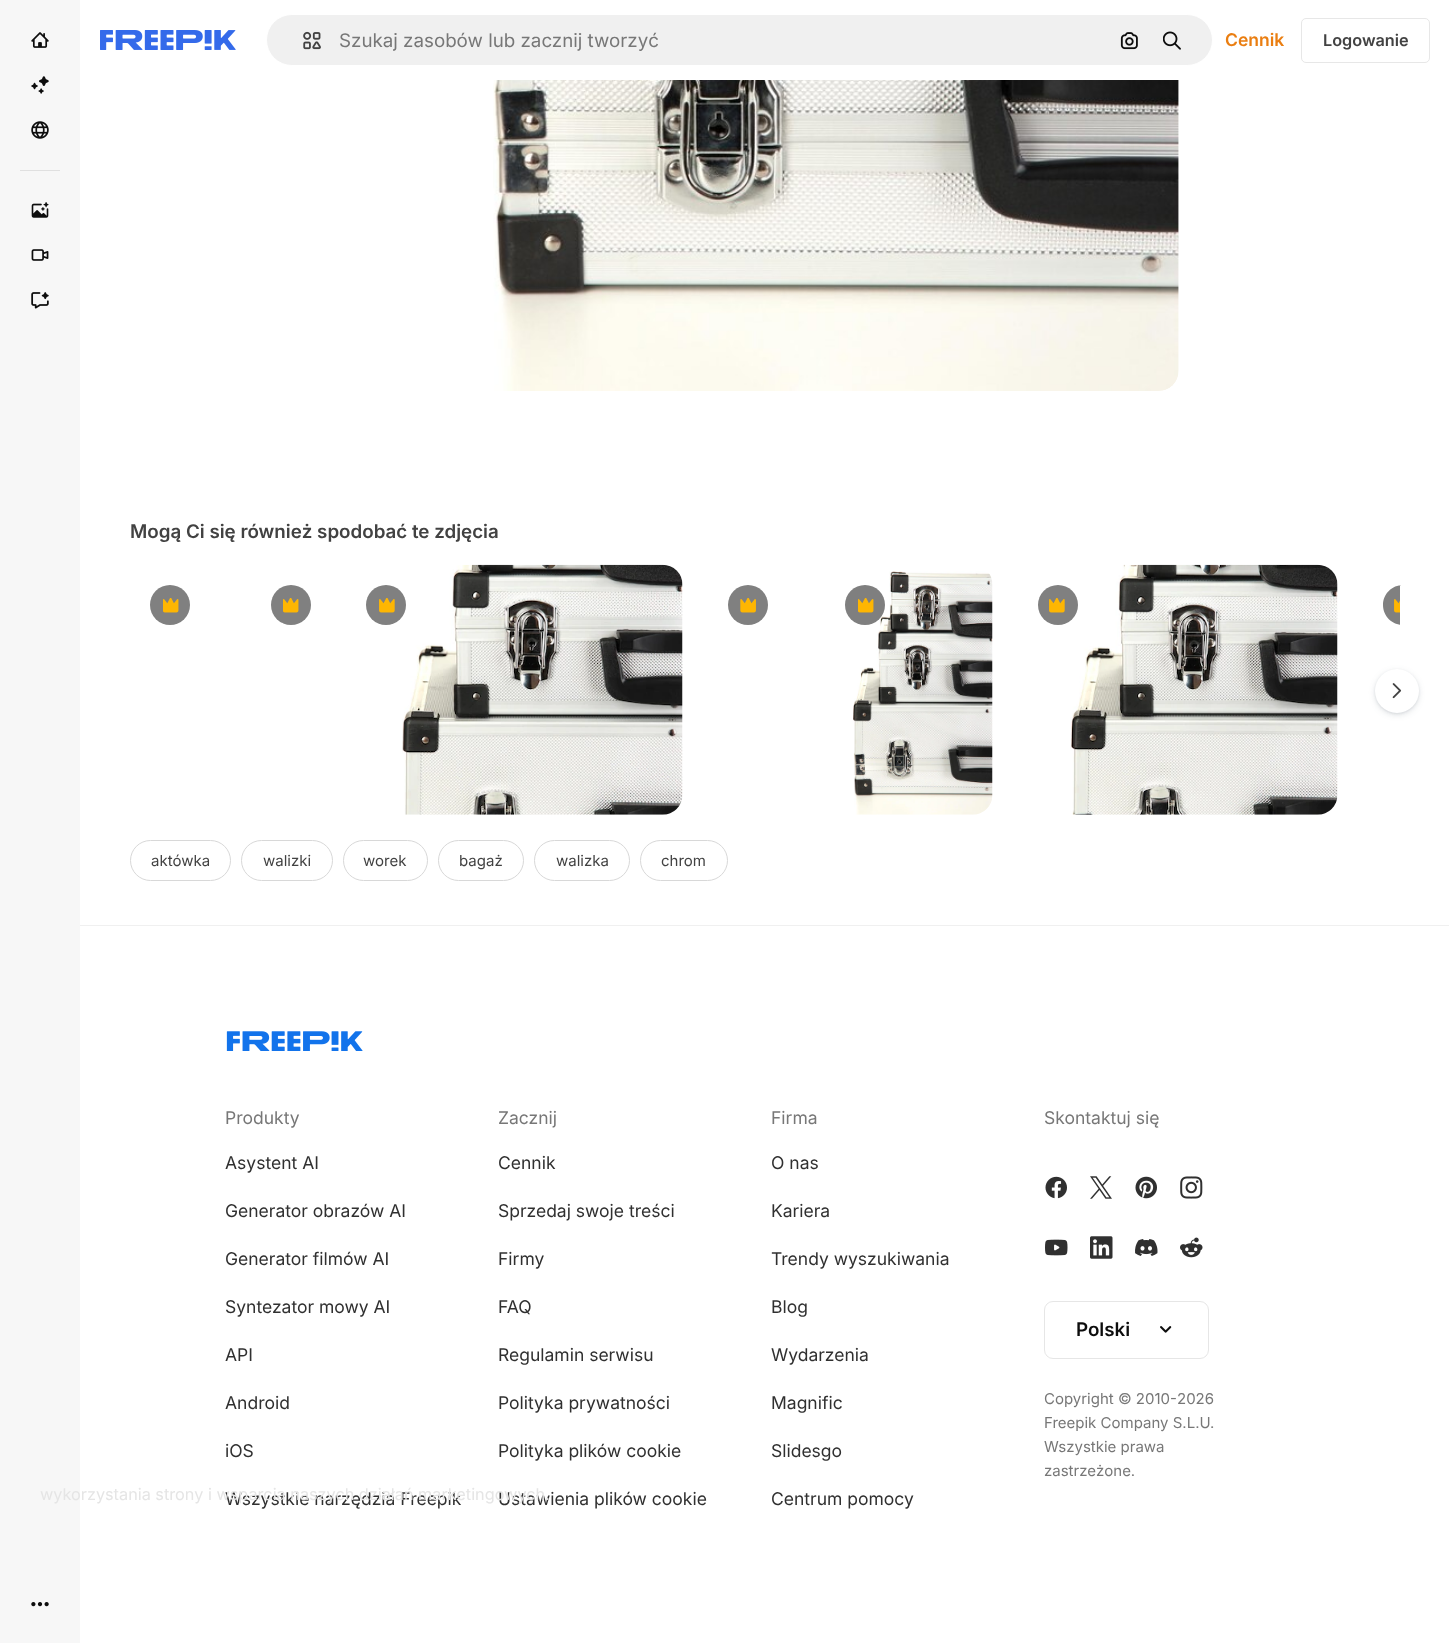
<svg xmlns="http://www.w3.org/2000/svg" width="1449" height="1643">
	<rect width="100%" height="100%" fill="#FFFFFF" />
	<rect x="0" y="0" width="80" height="1643" fill="#F7F7F7" />
	<image x="31" y="32" width="18" height="16" href="assets/img1.png" />
	<image x="31" y="76" width="18" height="18" href="assets/img2.png" />
	<image x="31" y="121" width="18" height="18" href="assets/img3.png" />
	<rect x="20" y="170" width="40" height="1" fill="#E0E0E0" />
	<image x="31" y="202" width="18" height="16" href="assets/img4.png" />
	<image x="31" y="249" width="18" height="12" href="assets/img5.png" />
	<image x="31" y="292" width="18" height="17" href="assets/img6.png" />
	<image x="31" y="1602" width="18" height="5" href="assets/img7.png" />
	<image x="100" y="30" width="136" height="20" href="assets/img8.png" />
	<rect x="266.5" y="14.5" width="946" height="51" rx="25.5" fill="#F0F0F0" stroke="#FFFFFF" />
	<image x="303" y="31" width="18" height="19" href="assets/img9.png" />
	<text x="339" y="47" font-family="Inter" font-size="18.75" fill="#777777">Szukaj zasobów lub zacznij tworzyć</text>
	<image x="1120" y="32" width="18" height="18" href="assets/img10.png" />
	<image x="1163" y="31" width="18" height="19" href="assets/img11.png" />
	<text x="1225" y="46" font-family="Inter" font-size="17.5" font-weight="600" fill="#EA7E11">Cennik</text>
	<rect x="1301.5" y="18.5" width="128" height="44" rx="4.5" fill="none" stroke="#E7E7E7" />
	<text x="1323" y="46" font-family="Inter" font-size="16.25" font-weight="600" fill="#424242">Logowanie</text>
	<image x="493" y="80" width="686" height="311" href="assets/img12.png" />
	<text x="130" y="538" font-family="Inter" font-size="18.75" font-weight="600" fill="#424242">Mogą Ci się również spodobać te zdjęcia</text>
	<circle cx="170" cy="605" r="20" fill="#808080" />
	<image x="163" y="598" width="16" height="15" href="assets/img13.png" />
	<circle cx="291" cy="605" r="20" fill="#808080" />
	<image x="283" y="598" width="16" height="15" href="assets/img13.png" />
	<image x="402" y="564" width="281" height="251" href="assets/img15.png" />
	<circle cx="386" cy="605" r="20" fill="#808080" />
	<image x="379" y="598" width="16" height="15" href="assets/img14.png" />
	<circle cx="748" cy="605" r="20" fill="#808080" />
	<image x="740" y="598" width="16" height="15" href="assets/img16.png" />
	<image x="853" y="571" width="140" height="244" href="assets/img17.png" />
	<circle cx="865" cy="605" r="20" fill="#7F7F7F" />
	<image x="858" y="598" width="16" height="15" href="assets/img18.png" />
	<image x="1070" y="564" width="268" height="251" href="assets/img19.png" />
	<circle cx="1058" cy="605" r="20" fill="#808080" />
	<image x="1049" y="598" width="16" height="15" href="assets/img14.png" />
	<path d="M1403 585H1400V625H1403C1392 625 1383 616 1383 605C1383 594 1392 585 1403 585Z" fill="#808080" />
	<image x="1394" y="599" width="6" height="14" href="assets/img20.png" />
	<rect x="1375" y="671" width="44" height="44" rx="22" fill="#374957" fill-opacity="0.15" filter="blur(3px)" />
	<rect x="1375" y="670" width="44" height="44" rx="22" fill="#374957" fill-opacity="0.1" filter="blur(1px)" />
	<circle cx="1397" cy="691" r="22" fill="#FFFFFF" />
	<image x="1392" y="683" width="10" height="16" href="assets/img21.png" />
	<rect x="130.5" y="840.5" width="100" height="40" rx="20" fill="none" stroke="#D8D8D8" />
	<text x="151" y="866" font-family="Inter" font-size="15" fill="#424242">aktówka</text>
	<rect x="241.5" y="840.5" width="91" height="40" rx="20" fill="none" stroke="#D8D8D8" />
	<text x="263" y="866" font-family="Inter" font-size="15" fill="#424242">walizki</text>
	<rect x="343.5" y="840.5" width="84" height="40" rx="20" fill="none" stroke="#D8D8D8" />
	<text x="363" y="866" font-family="Inter" font-size="15" fill="#424242">worek</text>
	<rect x="438.5" y="840.5" width="85" height="40" rx="20" fill="none" stroke="#D8D8D8" />
	<text x="459" y="866" font-family="Inter" font-size="15" fill="#424242">bagaż</text>
	<rect x="534.5" y="840.5" width="95" height="40" rx="20" fill="none" stroke="#D8D8D8" />
	<text x="556" y="866" font-family="Inter" font-size="15" fill="#424242">walizka</text>
	<rect x="640.5" y="840.5" width="87" height="40" rx="20" fill="none" stroke="#D8D8D8" />
	<text x="661" y="866" font-family="Inter" font-size="15" fill="#424242">chrom</text>
	<rect x="80" y="925" width="1369" height="1" fill="#F0F0F0" />
	<image x="226" y="1031" width="137" height="20" href="assets/img22.png" />
	<text x="225" y="1124" font-family="Inter" font-size="17.5" fill="#777777">Produkty</text>
	<g font-family="Inter" font-size="17.5" fill="#303030">
		<text x="225" y="1169">Asystent AI</text>
		<text x="225" y="1217">Generator obrazów AI</text>
		<text x="225" y="1265">Generator filmów AI</text>
		<text x="225" y="1313">Syntezator mowy AI</text>
		<text x="225" y="1361">API</text>
		<text x="225" y="1409">Android</text>
		<text x="225" y="1457">iOS</text>
		<text x="225" y="1505">Wszystkie narzędzia Freepik</text>
	</g>
	<text x="498" y="1124" font-family="Inter" font-size="17.5" fill="#777777">Zacznij</text>
	<g font-family="Inter" font-size="17.5" fill="#303030">
		<text x="498" y="1169">Cennik</text>
		<text x="498" y="1217">Sprzedaj swoje treści</text>
		<text x="498" y="1265">Firmy</text>
		<text x="498" y="1313">FAQ</text>
		<text x="498" y="1361">Regulamin serwisu</text>
		<text x="498" y="1409">Polityka prywatności</text>
		<text x="498" y="1457">Polityka plików cookie</text>
		<text x="498" y="1505">Ustawienia plików cookie</text>
	</g>
	<text x="771" y="1124" font-family="Inter" font-size="17.5" fill="#777777">Firma</text>
	<g font-family="Inter" font-size="17.5" fill="#303030">
		<text x="771" y="1169">O nas</text>
		<text x="771" y="1217">Kariera</text>
		<text x="771" y="1265">Trendy wyszukiwania</text>
		<text x="771" y="1313">Blog</text>
		<text x="771" y="1361">Wydarzenia</text>
		<text x="771" y="1409">Magnific</text>
		<text x="771" y="1457">Slidesgo</text>
		<text x="771" y="1505">Centrum pomocy</text>
	</g>
	<text x="1044" y="1124" font-family="Inter" font-size="17.5" fill="#777777">Skontaktuj się</text>
	<image x="1045" y="1176" width="22" height="23" href="assets/img23.png" />
	<image x="1090" y="1176" width="22" height="23" href="assets/img24.png" />
	<image x="1135" y="1176" width="22" height="23" href="assets/img25.png" />
	<image x="1180" y="1176" width="23" height="23" href="assets/img26.png" />
	<image x="1045" y="1239" width="23" height="17" href="assets/img27.png" />
	<image x="1090" y="1236" width="23" height="23" href="assets/img28.png" />
	<image x="1135" y="1239" width="23" height="17" href="assets/img29.png" />
	<image x="1180" y="1237" width="23" height="21" href="assets/img30.png" />
	<rect x="1044.5" y="1301.5" width="164" height="57" rx="8.5" fill="none" stroke="#E6E6E6" />
	<text x="1076" y="1336" font-family="Inter" font-size="18.75" font-weight="600" fill="#0D0D0D">Polski</text>
	<image x="1160" y="1326" width="12" height="7" href="assets/img31.png" />
	<g font-family="Inter" font-size="15" fill="#777777">
		<text x="1044" y="1404">Copyright © 2010-</text>
		<text x="1177" y="1404">2026</text>
		<text x="1044" y="1428">Freepik Company S.L.U.</text>
		<text x="1044" y="1452">Wszystkie prawa</text>
		<text x="1044" y="1476">zastrzeżone.</text>
	</g>
	<text x="40" y="1500" font-family="Inter" font-size="16.25" fill="#E5E5E5">wykorzystania strony i wsparcia naszych działań marketingowych.</text>
</svg>
